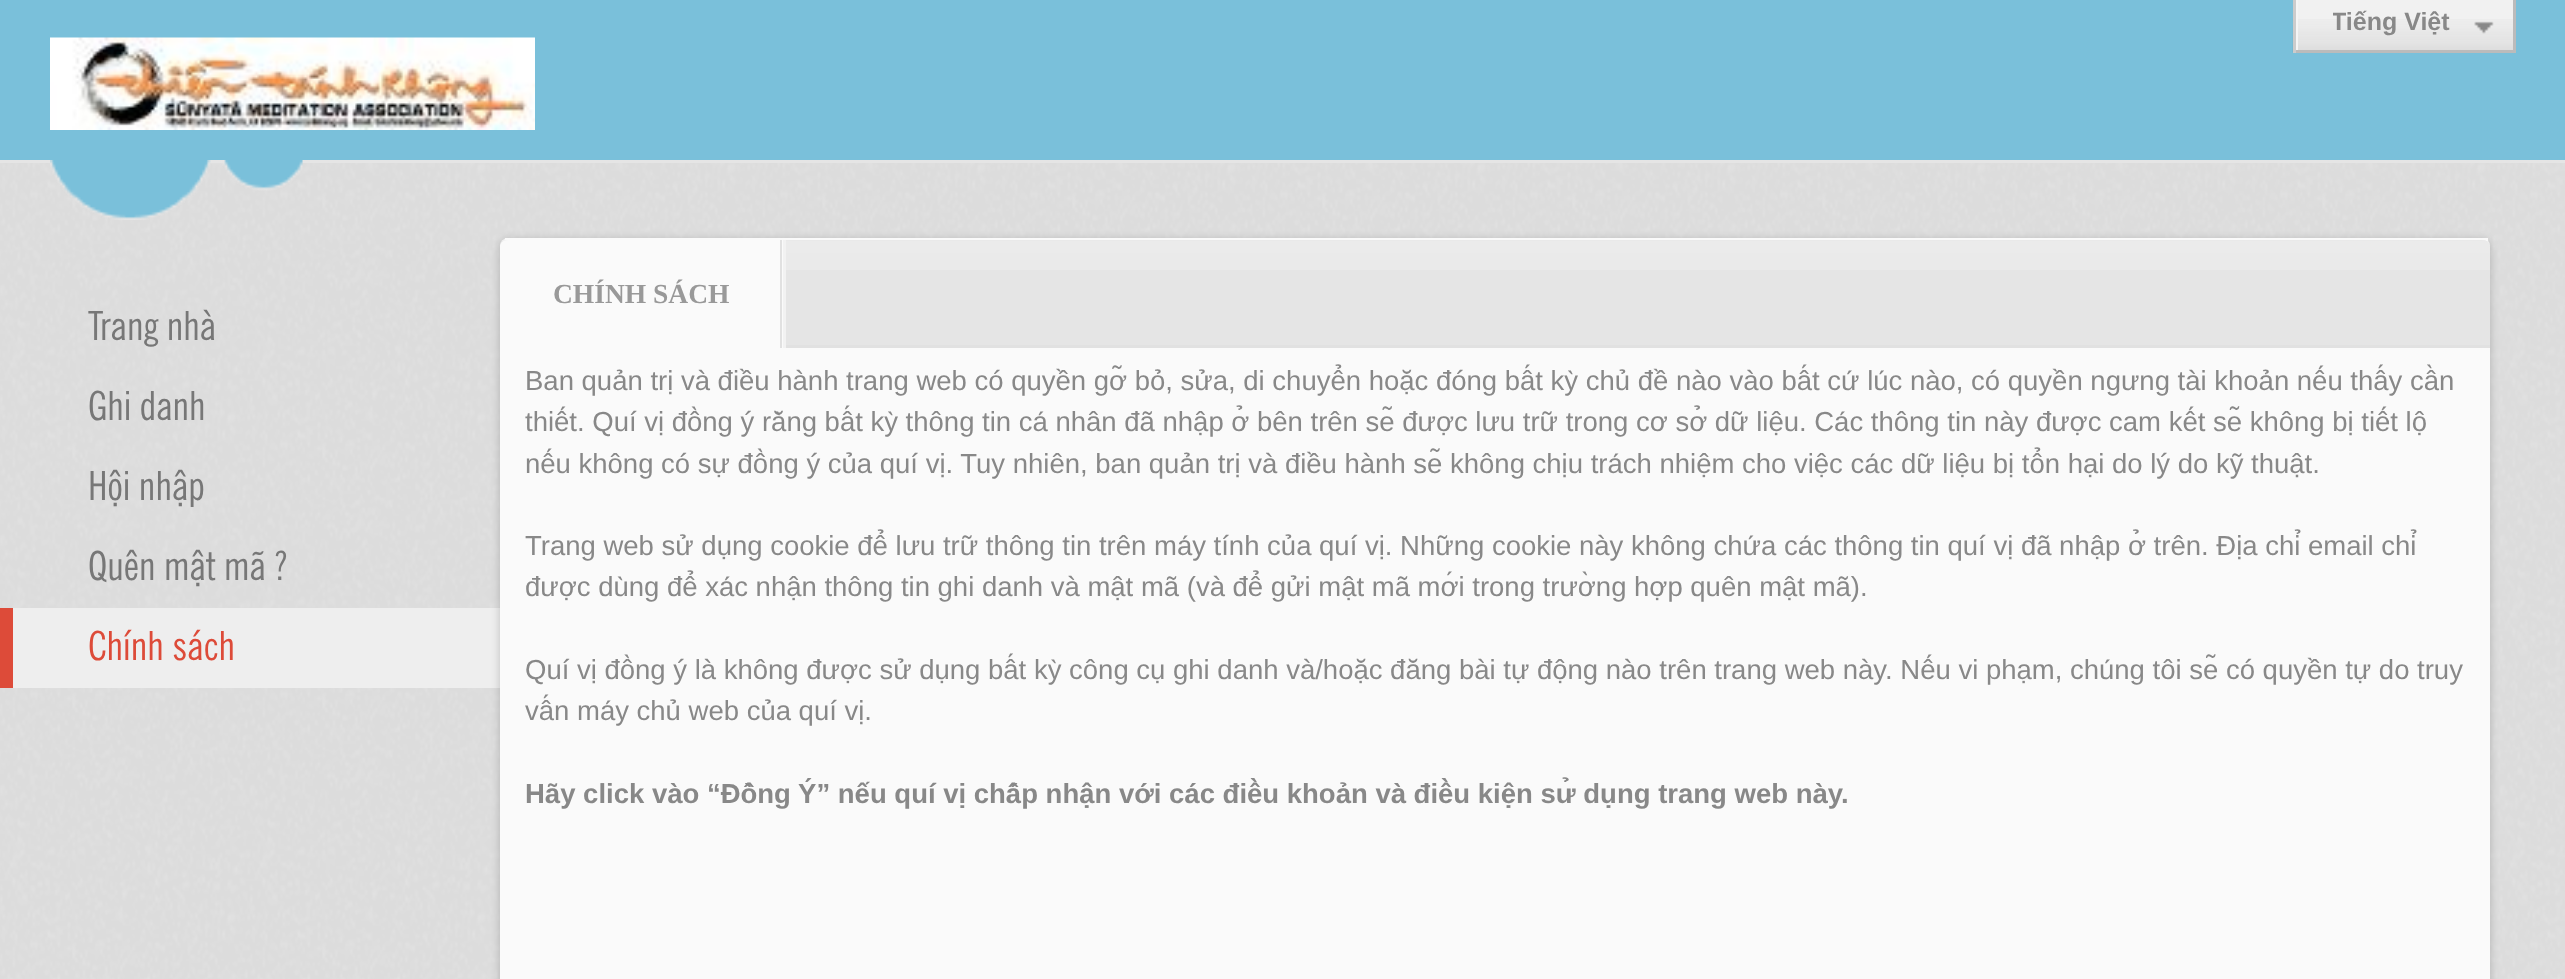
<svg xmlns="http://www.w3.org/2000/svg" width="2565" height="979">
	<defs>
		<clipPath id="clip1"><rect x="2295" y="0" width="218" height="50" /></clipPath>
		<clipPath id="clip2"><rect x="2333" y="10" width="142" height="30" /></clipPath>
	</defs>
	<rect width="100%" height="100%" fill="#FFFFFF" />
	<image x="0" y="163" width="2565" height="816" href="assets/img1.png" />
	<rect x="0" y="0" width="2565" height="160" fill="#7AC0DA" />
	<rect x="0" y="160" width="2565" height="3" fill="#E5E5E5" />
	<rect x="2298" y="0" width="215" height="50" fill="#F1F1F1" />
	<image x="2292" y="19" width="221" height="34" href="assets/img2.png" />
	<g clip-path="url(#clip1)">
		<path d="M2048-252H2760V298H2048ZM2298-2H2515V52H2298Z" fill="#F5F5F5" fill-rule="evenodd" />
	</g>
	<rect x="2513" y="0" width="3" height="53" fill="#BBBBBB" />
	<rect x="2293" y="50" width="222" height="3" fill="#BBBBBB" />
	<rect x="2293" y="0" width="3" height="53" fill="#CCCCCC" />
	<g clip-path="url(#clip2)">
		<text x="2331" y="30" font-family="Liberation Sans" font-size="25" font-weight="700" fill="#888888">Tiếng Việt</text>
	</g>
	<image x="2474" y="21" width="20" height="13" href="assets/img3.png" />
	<image x="50" y="37" width="485" height="93" href="assets/img4.png" />
	<image x="50" y="160" width="253" height="60" href="assets/img5.png" />
	<g font-family="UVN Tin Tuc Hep" font-size="40" fill="#777777">
		<text x="88" y="340">Trang nhà</text>
		<text x="88" y="420">Ghi danh</text>
		<text x="88" y="500">Hội nhập</text>
		<text x="88" y="580">Quên mật mã ?</text>
	</g>
	<rect x="13" y="608" width="487" height="80" fill="#EEEEEE" />
	<rect x="0" y="608" width="13" height="80" fill="#DD4B39" />
	<text x="88" y="660" font-family="UVN Tin Tuc Hep" font-size="40" fill="#DD4B39">Chính sách</text>
	<rect x="500" y="240" width="1990" height="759" rx="8" fill="#000000" fill-opacity="0.2" filter="blur(4px)" />
	<rect x="500" y="238" width="1990" height="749" rx="8" fill="#F1F1F1" />
	<rect x="505" y="238" width="1983" height="3" fill="#FAFAFA" />
	<path d="M508 240H2482C2486.5 240 2490 243.5 2490 248V348H500V248C500 243.5 503.5 240 508 240Z" fill="#E5E5E5" />
	<image x="500" y="240" width="1990" height="30" href="assets/img6.png" />
	<rect x="786" y="345" width="1704" height="3" fill="#E1E1E1" />
	<rect x="783" y="240" width="3" height="108" fill="#F2F2F2" />
	<path d="M508 240H783V348H500V248C500 243.5 503.5 240 508 240Z" fill="#FAFAFA" />
	<rect x="780" y="240" width="2" height="108" fill="#E1E1E1" />
	<path d="M508 240C505 240 502 243 502 248V348H500V248C500 243 503 240 508 240Z" fill="#FAFAFA" />
	<text x="553" y="303" font-family="Liberation Serif" font-size="27.5" font-weight="700" fill="#999999">CHÍNH SÁCH</text>
	<rect x="500" y="348" width="1990" height="631" fill="#FAFAFA" />
	<g font-family="Liberation Sans" font-size="27.5" fill="#888888">
		<text x="525" y="390">Ban quản trị và điều hành trang web có quyền gỡ bỏ, sửa, di chuyển hoặc đóng bất kỳ chủ đề nào vào bất cứ lúc nào, có quyền ngưng tài khoản nếu thấy cần</text>
		<text x="525" y="431">thiết. Quí vị đồng ý rằng bất kỳ thông tin cá nhân đã nhập ở bên trên sẽ được lưu trữ trong cơ sở dữ liệu. Các thông tin này được cam kết sẽ không bị tiết lộ</text>
		<text x="525" y="473">nếu không có sự đồng ý của quí vị. Tuy nhiên, ban quản trị và điều hành sẽ không chịu trách nhiệm cho việc các dữ liệu bị tổn hại do lý do kỹ thuật.</text>
		<text x="525" y="555">Trang web sử dụng cookie để lưu trữ thông tin trên máy tính của quí vị. Những cookie này không chứa các thông tin quí vị đã nhập ở trên. Địa chỉ email chỉ</text>
		<text x="525" y="596">được dùng để xác nhận thông tin ghi danh và mật mã (và để gửi mật mã mới trong trường hợp quên mật mã).</text>
		<text x="525" y="679">Quí vị đồng ý là không được sử dụng bất kỳ công cụ ghi danh và/hoặc đăng bài tự động nào trên trang web này. Nếu vi phạm, chúng tôi sẽ có quyền tự do truy</text>
		<text x="525" y="720">vấn máy chủ web của quí vị.</text>
	</g>
	<text x="525" y="803" font-family="Liberation Sans" font-size="27.5" font-weight="700" fill="#888888">Hãy click vào “Đồng Ý” nếu quí vị chấp nhận với các điều khoản và điều kiện sử dụng trang web này.</text>
</svg>
